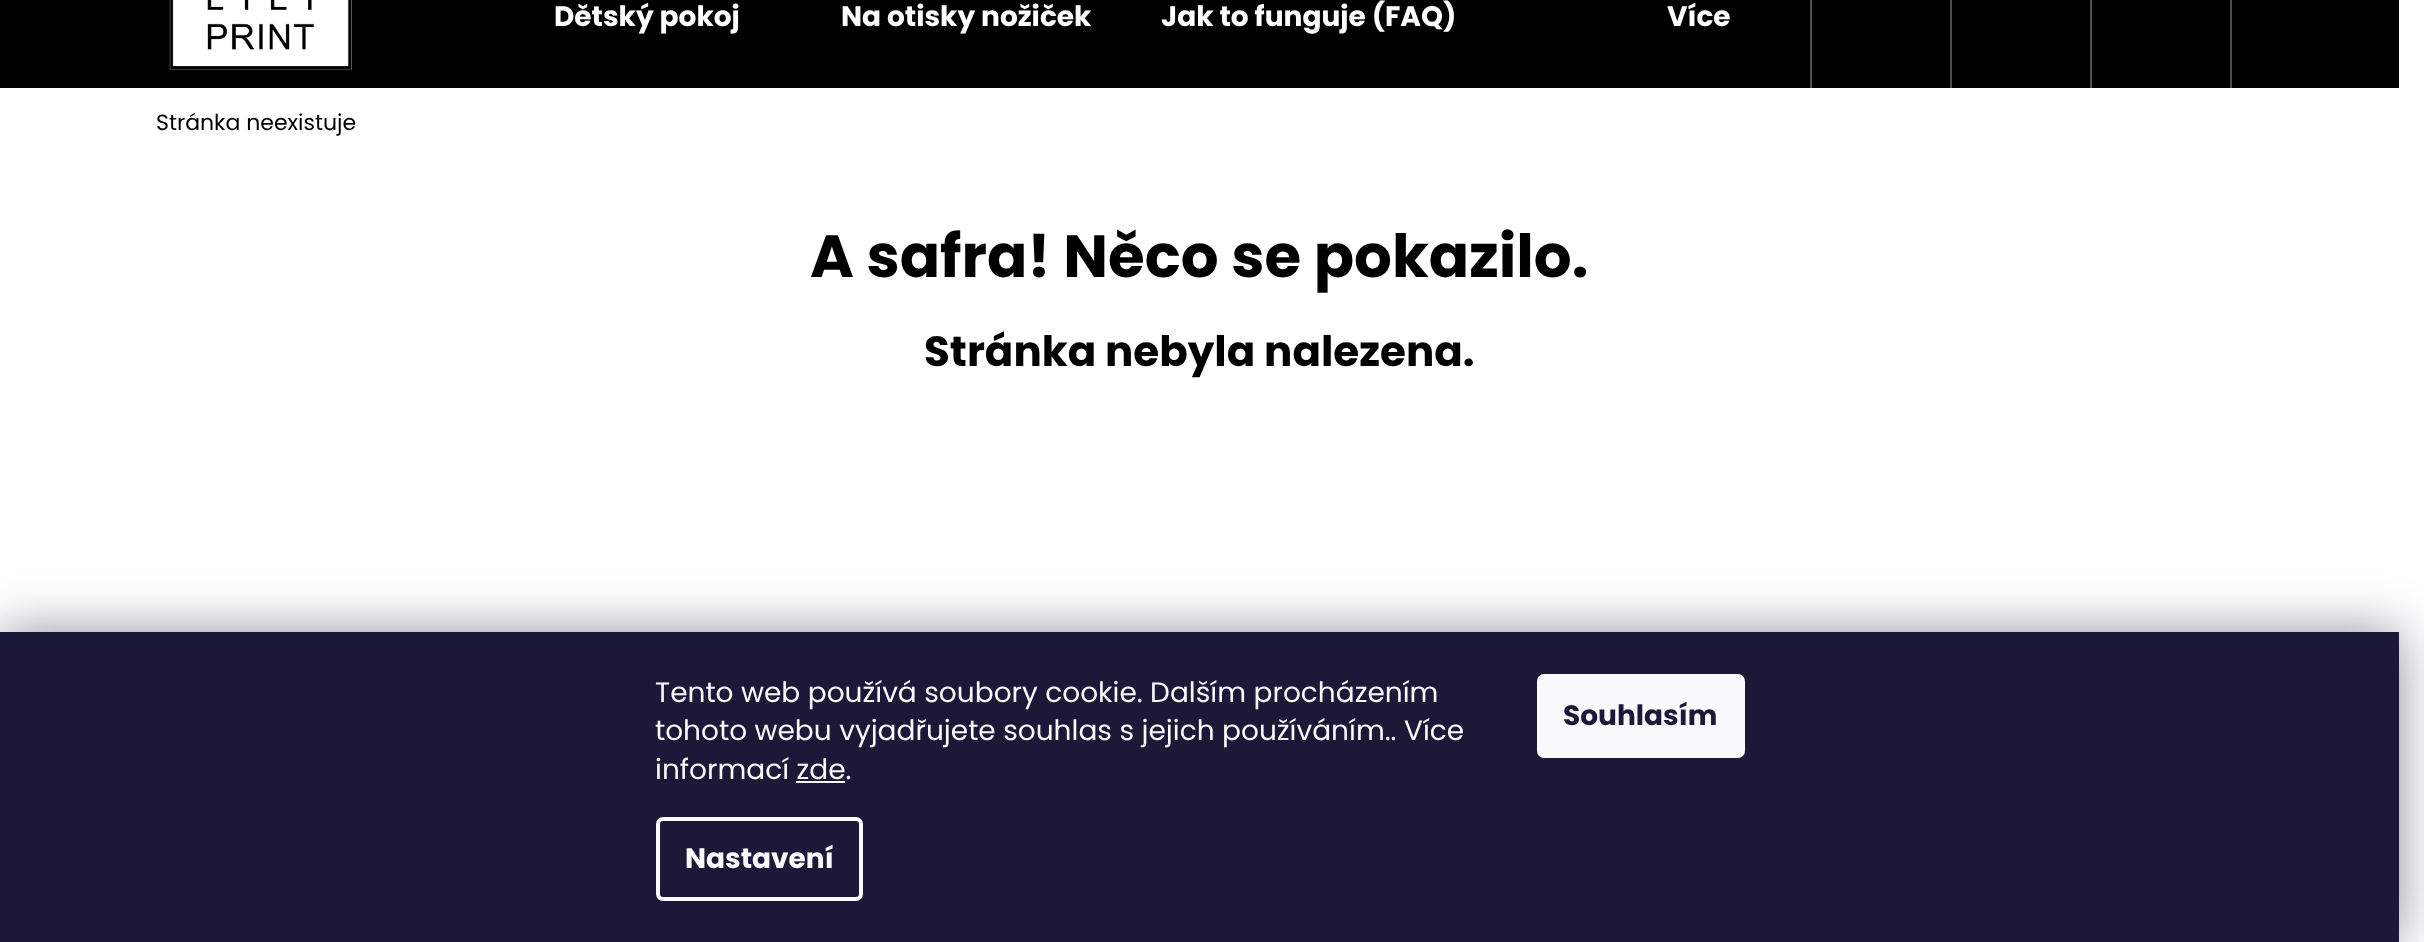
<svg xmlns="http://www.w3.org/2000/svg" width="2424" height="942">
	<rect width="100%" height="100%" fill="#FFFFFF" />
	<rect x="0" y="0" width="2399" height="88" fill="#000000" />
	<image x="169" y="0" width="183" height="70" href="assets/img1.png" />
	<g font-family="Poppins" font-size="28" font-weight="700" fill="#FFFFFF">
		<text x="554" y="26">Dětský pokoj</text>
		<text x="841" y="26">Na otisky nožiček</text>
		<text x="1161" y="26">Jak to funguje (FAQ)</text>
		<text x="1667" y="26">Více</text>
	</g>
	<rect x="2230" y="0" width="2" height="88" fill="#4D4D4D" />
	<rect x="1810" y="0" width="2" height="88" fill="#4D4D4D" />
	<rect x="1950" y="0" width="2" height="88" fill="#4D4D4D" />
	<rect x="2090" y="0" width="2" height="88" fill="#4D4D4D" />
	<text x="156" y="130" font-family="Poppins" font-size="22" fill="#000000">Stránka neexistuje</text>
	<text x="810" y="277" font-family="Poppins" font-size="59.5" font-weight="700" fill="#000000">A safra! Něco se pokazilo.</text>
	<text x="924" y="366" font-family="Poppins" font-size="42" font-weight="700" fill="#000000">Stránka nebyla nalezena.</text>
	<rect x="0" y="632" width="2399" height="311" fill="#1B1939" fill-opacity="0.5" filter="blur(26px)" />
	<rect x="0" y="632" width="2399" height="310" fill="#1A1937" />
	<g font-family="Poppins" font-size="28" fill="#F8FAFB">
		<text x="655" y="702">Tento web používá soubory cookie. Dalším procházením</text>
		<text x="655" y="740">tohoto webu vyjadřujete souhlas s jejich používáním.. Více</text>
		<text x="655" y="779">informací zde.</text>
	</g>
	<rect x="796" y="781" width="49" height="2" fill="#F8FAFB" />
	<rect x="658" y="819" width="203" height="80" rx="5" fill="none" stroke="#F8FAFB" stroke-width="4" />
	<text x="685" y="868" font-family="Poppins" font-size="28" font-weight="700" fill="#F8FAFB">Nastavení</text>
	<rect x="1537" y="674" width="208" height="84" rx="7" fill="#F8FAFB" />
	<text x="1563" y="725" font-family="Poppins" font-size="28" font-weight="700" fill="#1A1937">Souhlasím</text>
</svg>
